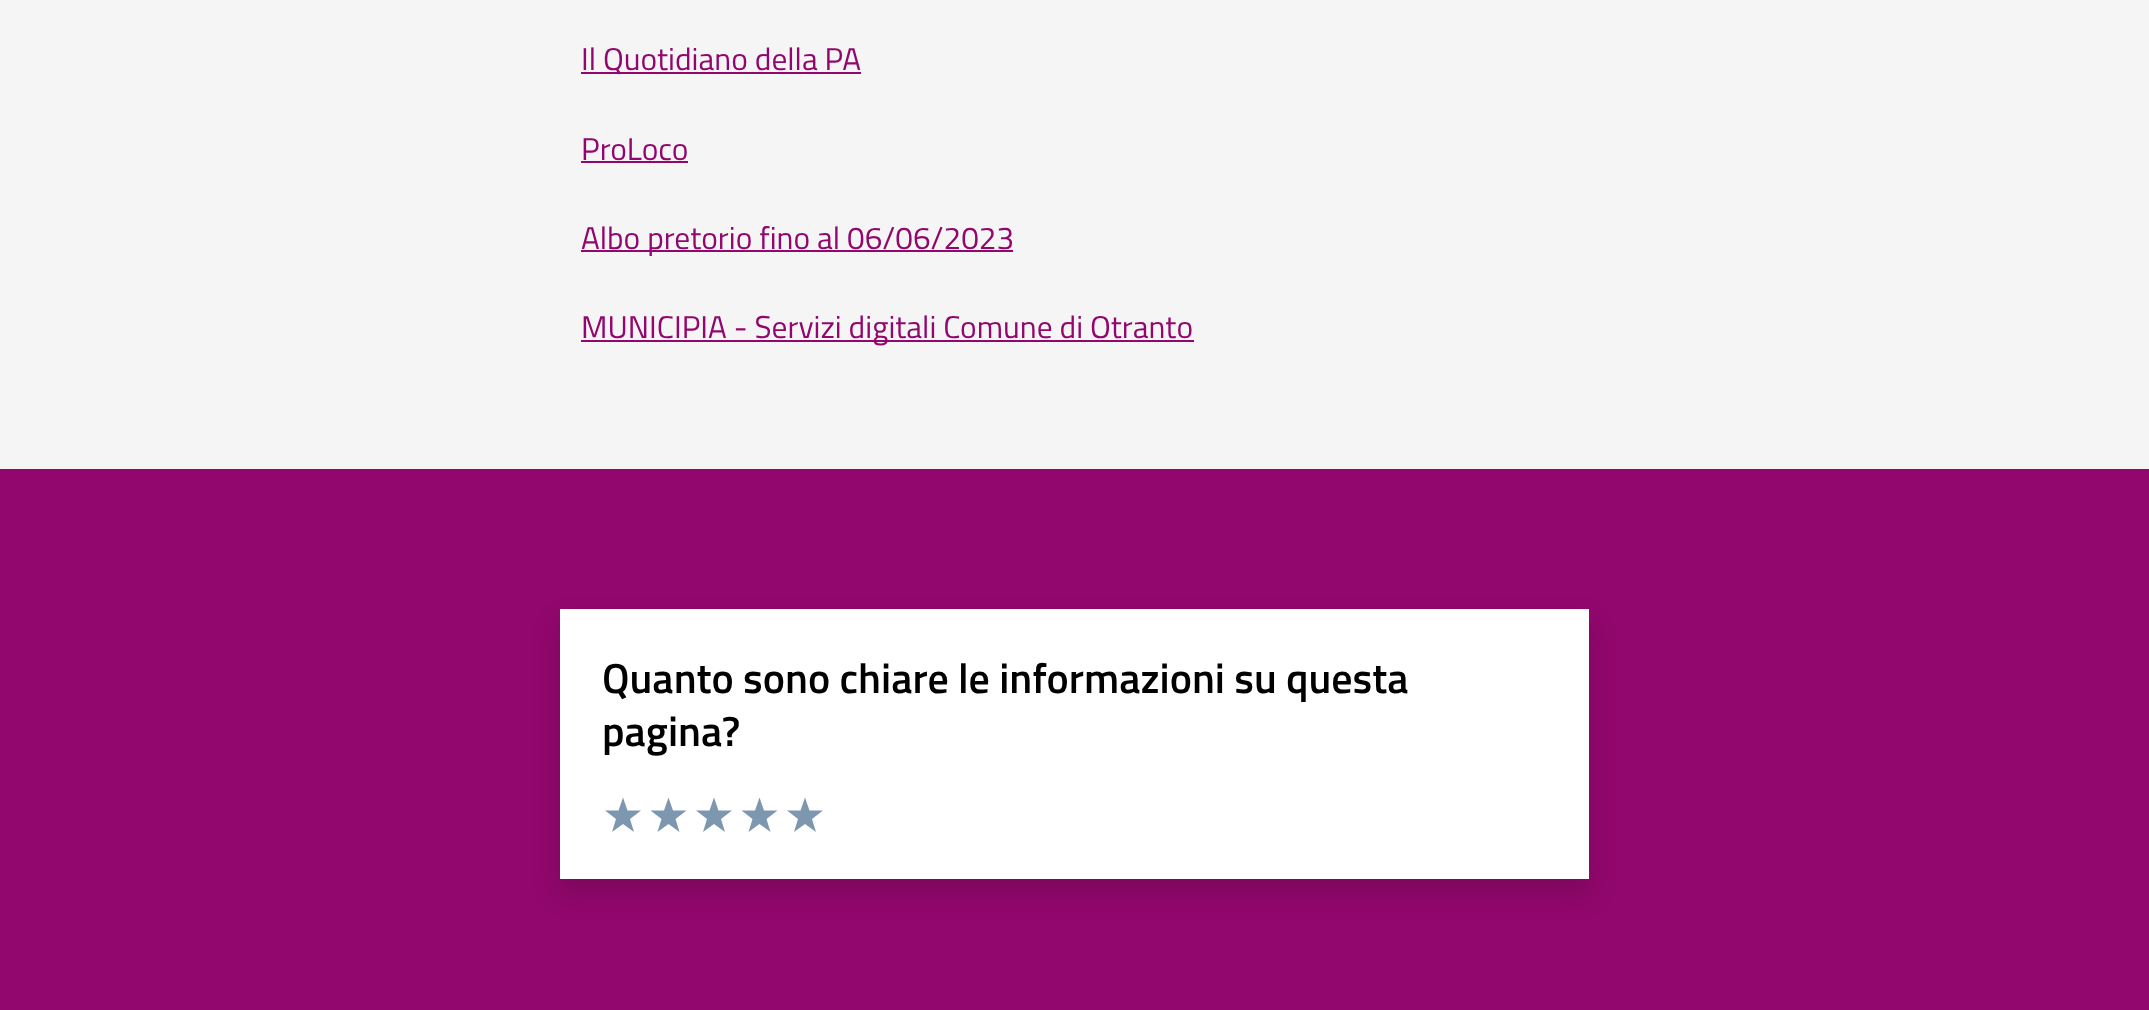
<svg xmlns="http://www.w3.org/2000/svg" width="2149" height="1010">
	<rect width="100%" height="100%" fill="#F5F5F5" />
	<rect x="581" y="72" width="280" height="2" fill="#92076D" />
	<g font-family="Titillium Web" font-size="31.5" fill="#92076D">
		<text x="581" y="70">Il Quotidiano della PA</text>
		<text x="581" y="160">ProLoco</text>
	</g>
	<rect x="581" y="161" width="107" height="2" fill="#92076D" />
	<rect x="581" y="250" width="432" height="2" fill="#92076D" />
	<text x="581" y="249" font-family="Titillium Web" font-size="31.5" fill="#92076D">Albo pretorio fino al 06/06/2023</text>
	<rect x="581" y="340" width="613" height="2" fill="#92076D" />
	<text x="581" y="338" font-family="Titillium Web" font-size="31.5" fill="#92076D">MUNICIPIA - Servizi digitali Comune di Otranto</text>
	<rect x="0" y="469" width="2149" height="541" fill="#92076D" />
	<rect x="560" y="623" width="1029" height="270" fill="#000000" fill-opacity="0.15" filter="blur(14px)" />
	<rect x="560" y="609" width="1029" height="270" fill="#FFFFFF" />
	<g font-family="Titillium Web" font-size="42" font-weight="600" fill="#000000">
		<text x="602" y="693">Quanto sono chiare le informazioni su questa</text>
		<text x="602" y="746">pagina?</text>
	</g>
	<path d="M623 797.5L618.5 810.5H605L616 819L612 832L623 824L634 832L630 819L641 810.5H627.5Z" fill="#7D97B0" />
	<path d="M668.5 797.5L664 810.5H650.5L661.5 819L657.5 832L668.5 824L679.5 832L675.5 819L686.5 810.5H673Z" fill="#7D97B0" />
	<path d="M714 797.5L709.5 810.5H696L707 819L703 832L714 824L725 832L721 819L732 810.5H718.5Z" fill="#7D97B0" />
	<path d="M759.5 797.5L755 810.5H741.5L752.5 819L748.5 832L759.5 824L770.5 832L766.5 819L777.5 810.5H764Z" fill="#7D97B0" />
	<path d="M805 797.5L800.5 810.5H787L798 819L794 832L805 824L816 832L812 819L823 810.5H809.5Z" fill="#7D97B0" />
</svg>
